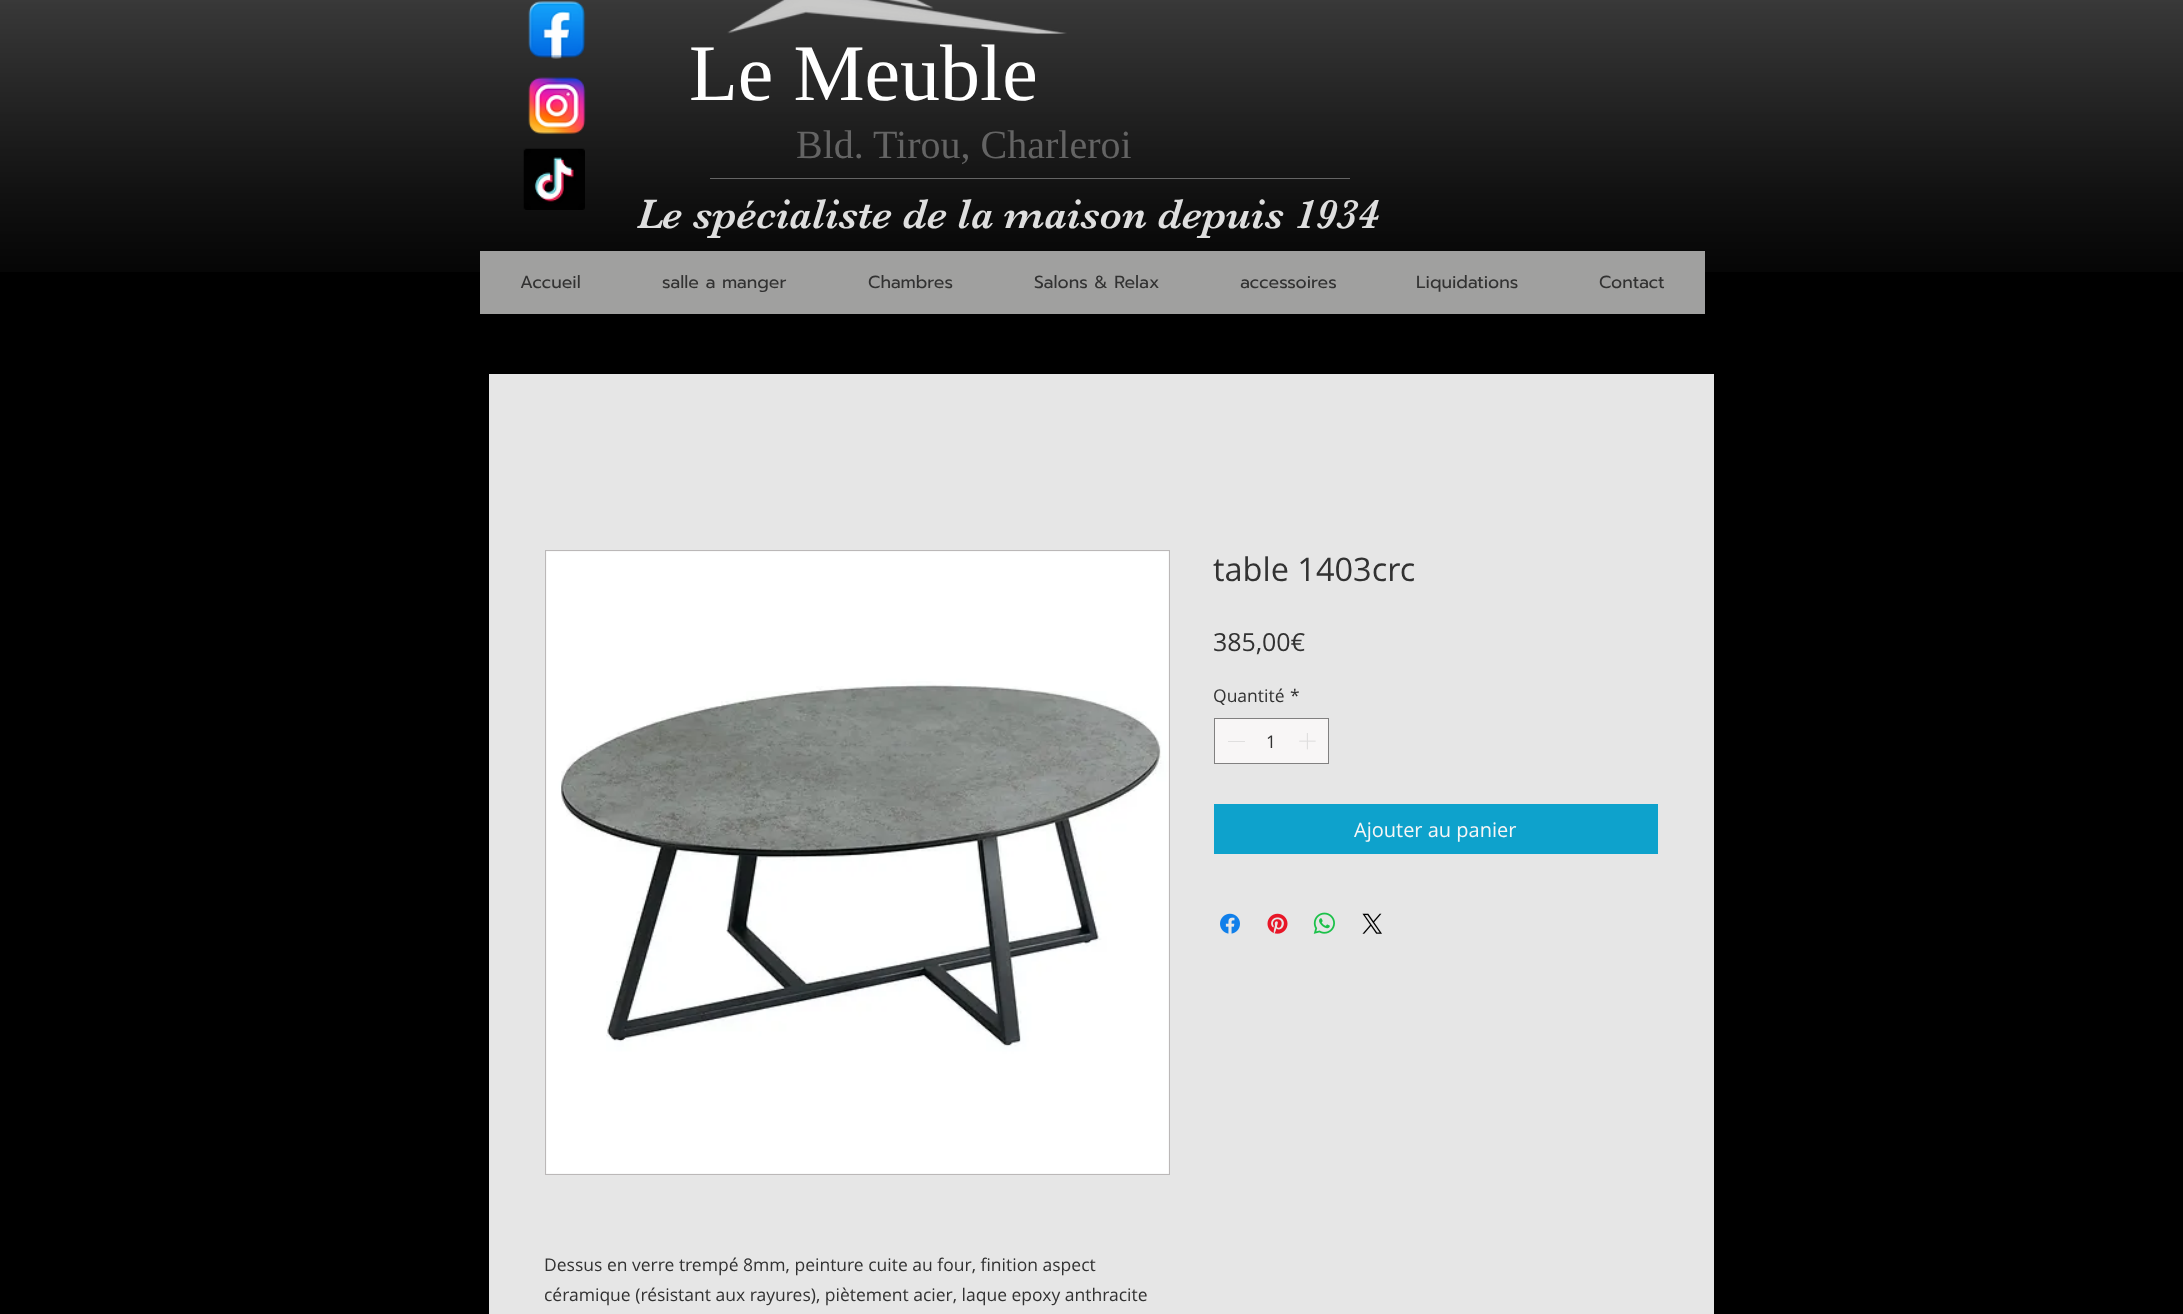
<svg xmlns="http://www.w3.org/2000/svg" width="2183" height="1314">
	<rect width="100%" height="100%" fill="#000000" />
	<image x="0" y="0" width="2183" height="272" href="assets/img1.png" />
	<image x="528" y="1" width="58" height="58" href="assets/img2.png" />
	<image x="727" y="0" width="340" height="34" href="assets/img3.png" />
	<image x="528" y="77" width="58" height="57" href="assets/img4.png" />
	<text x="689" y="100" font-family="Liberation Serif" font-size="80" fill="#FFFFFF">Le Meuble</text>
	<image x="523" y="148" width="62" height="62" href="assets/img5.png" />
	<text x="796" y="158" font-family="Liberation Serif" font-size="40" fill="#646464">Bld. Tirou, Charleroi</text>
	<rect x="710" y="178" width="640" height="1" fill="#646464" />
	<text x="637" y="228" font-family="'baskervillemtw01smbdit'" font-size="42.5" fill="#DEDEDE">Le spécialiste de la maison depuis 1934</text>
	<rect x="480" y="251" width="1225" height="63" fill="#A0A09F" />
	<g font-family="Prompt" font-size="17.5" fill="#323232">
		<text x="520" y="288">Accueil</text>
		<text x="662" y="288">salle a manger</text>
		<text x="868" y="288">Chambres</text>
		<text x="1034" y="288">Salons &amp; Relax</text>
		<text x="1240" y="288">accessoires</text>
		<text x="1416" y="288">Liquidations</text>
		<text x="1599" y="288">Contact</text>
	</g>
	<rect x="489" y="374" width="1225" height="940" fill="#E6E6E6" />
	<text x="1213" y="581" font-family="Open Sans" font-size="32.5" fill="#323232">table 1403crc</text>
	<text x="1213" y="651" font-family="Open Sans" font-size="25" fill="#323232">385,00€</text>
	<g font-family="Open Sans" font-size="17.5" fill="#323232">
		<text x="1213" y="702">Quantité</text>
		<text x="1290" y="702">*</text>
	</g>
	<rect x="1214.5" y="718.5" width="114" height="45" fill="#F8F6F6" stroke="#818080" />
	<rect x="1228" y="741" width="17" height="1" fill="#E0DFDF" />
	<text x="1266" y="748" font-family="Open Sans" font-size="17.5" fill="#323232">1</text>
	<image x="1299" y="733" width="17" height="17" href="assets/img6.png" />
	<rect x="1214" y="804" width="444" height="50" fill="#0EA2CC" />
	<text x="1354" y="837" font-family="Open Sans" font-size="20" fill="#F8F6F6">Ajouter au panier</text>
	<image x="1220" y="913" width="20" height="21" href="assets/img7.png" />
	<image x="1267" y="913" width="21" height="21" href="assets/img8.png" />
	<image x="1313" y="912" width="22" height="22" href="assets/img9.png" />
	<image x="1362" y="913" width="20" height="21" href="assets/img10.png" />
	<rect x="545.5" y="550.5" width="624" height="624" fill="none" stroke="#BBB8B8" />
	<image x="546" y="551" width="623" height="623" href="assets/img11.png" />
	<g font-family="Open Sans" font-size="17.5" fill="#323232">
		<text x="544" y="1271">Dessus en verre trempé 8mm, peinture cuite au four, finition aspect</text>
		<text x="544" y="1301">céramique (résistant aux rayures), piètement acier, laque epoxy anthracite</text>
	</g>
</svg>
